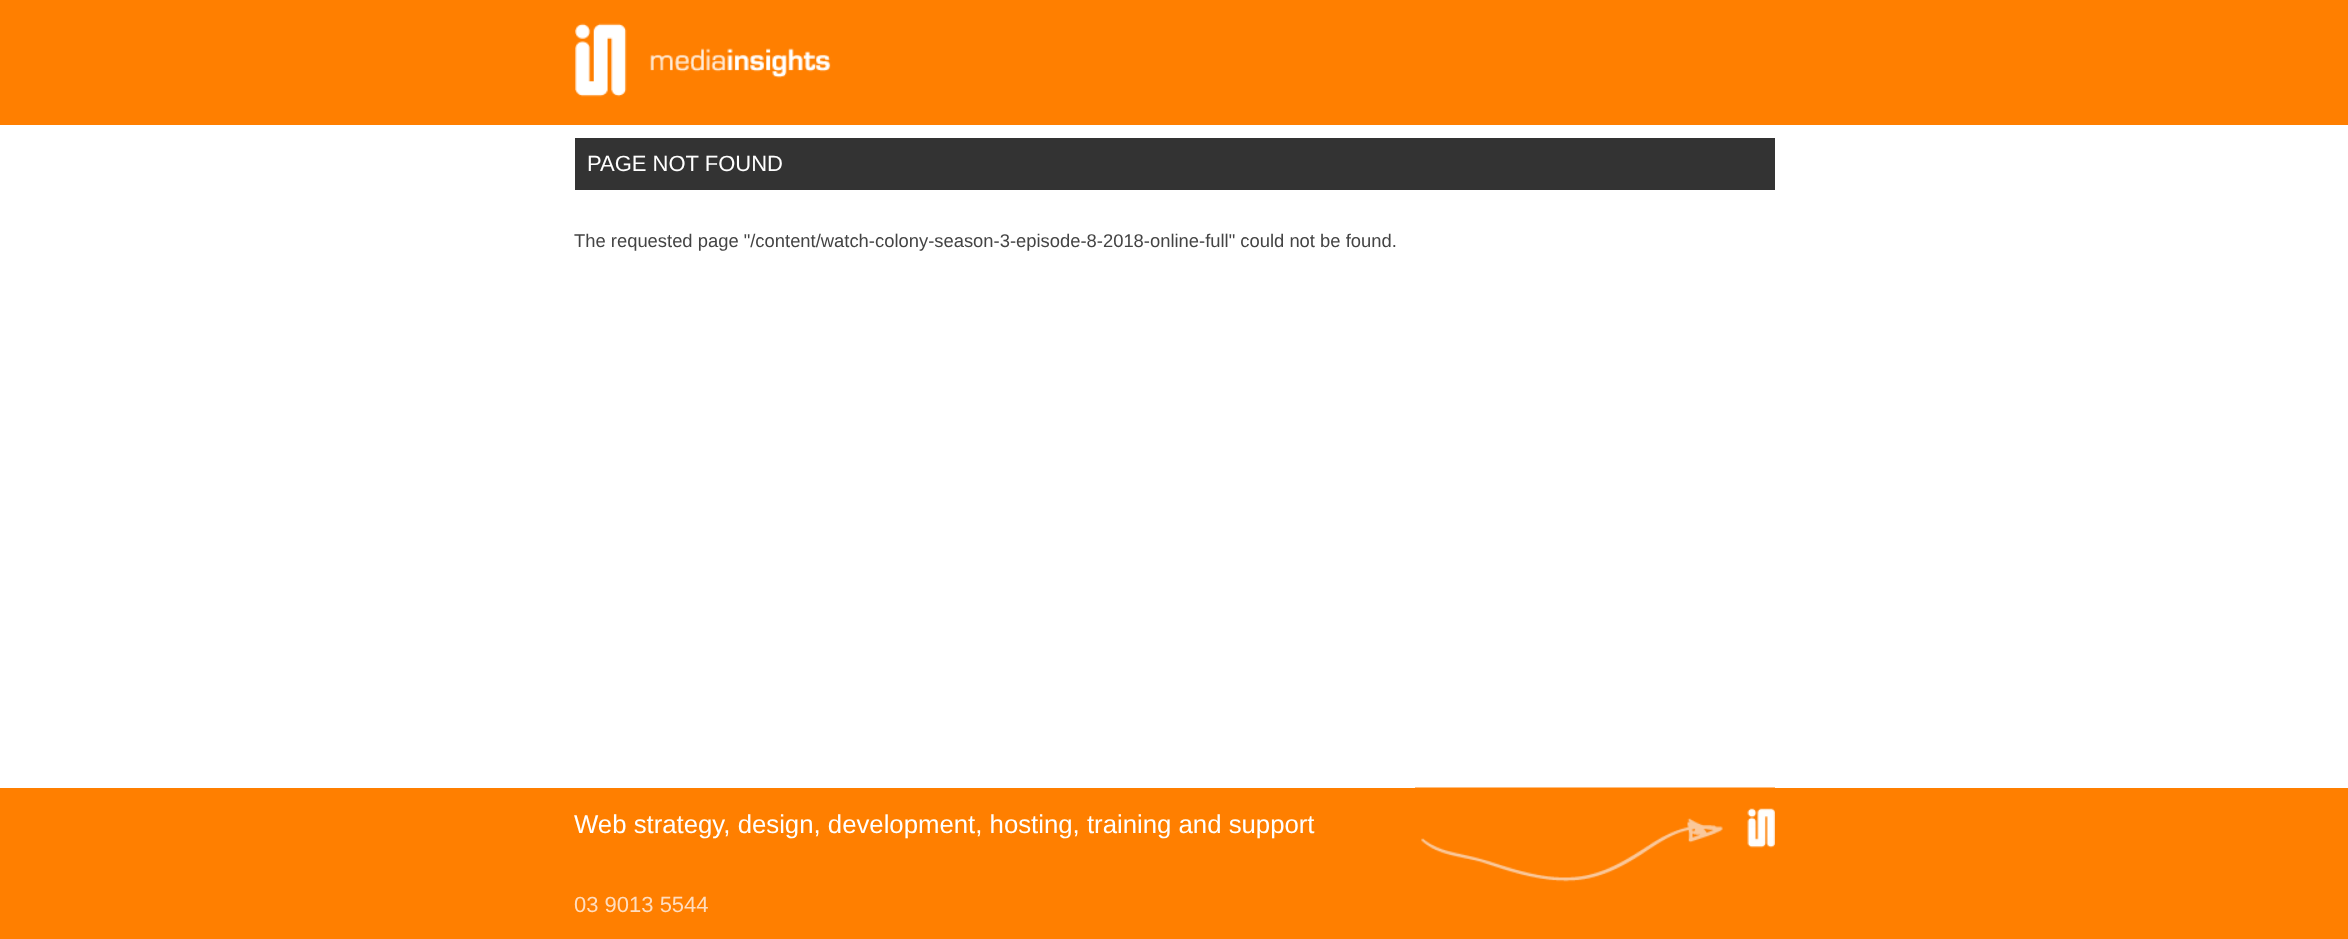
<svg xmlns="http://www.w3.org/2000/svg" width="2348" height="939">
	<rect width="100%" height="100%" fill="#FFFFFF" />
	<rect x="0" y="0" width="2348" height="125" fill="#FF7F00" />
	<image x="575" y="23" width="256" height="74" href="assets/img1.png" />
	<rect x="575" y="138" width="1200" height="52" fill="#333333" />
	<text x="587" y="171" font-family="Liberation Sans" font-size="22" fill="#FFFFFF">PAGE NOT FOUND</text>
	<text x="574" y="247" font-family="Liberation Sans" font-size="18.4" fill="#444444">The requested page "/content/watch-colony-season-3-episode-8-2018-online-full" could not be found.</text>
	<rect x="0" y="788" width="2348" height="151" fill="#FF7F00" />
	<image x="1415" y="787" width="360" height="95" href="assets/img2.png" />
	<text x="574" y="833" font-family="Liberation Sans" font-size="25.75" fill="#FFFFFF">Web strategy, design, development, hosting, training and support</text>
	<text x="574" y="912" font-family="Liberation Sans" font-size="22" fill="#FFDDBF">03 9013 5544</text>
</svg>
